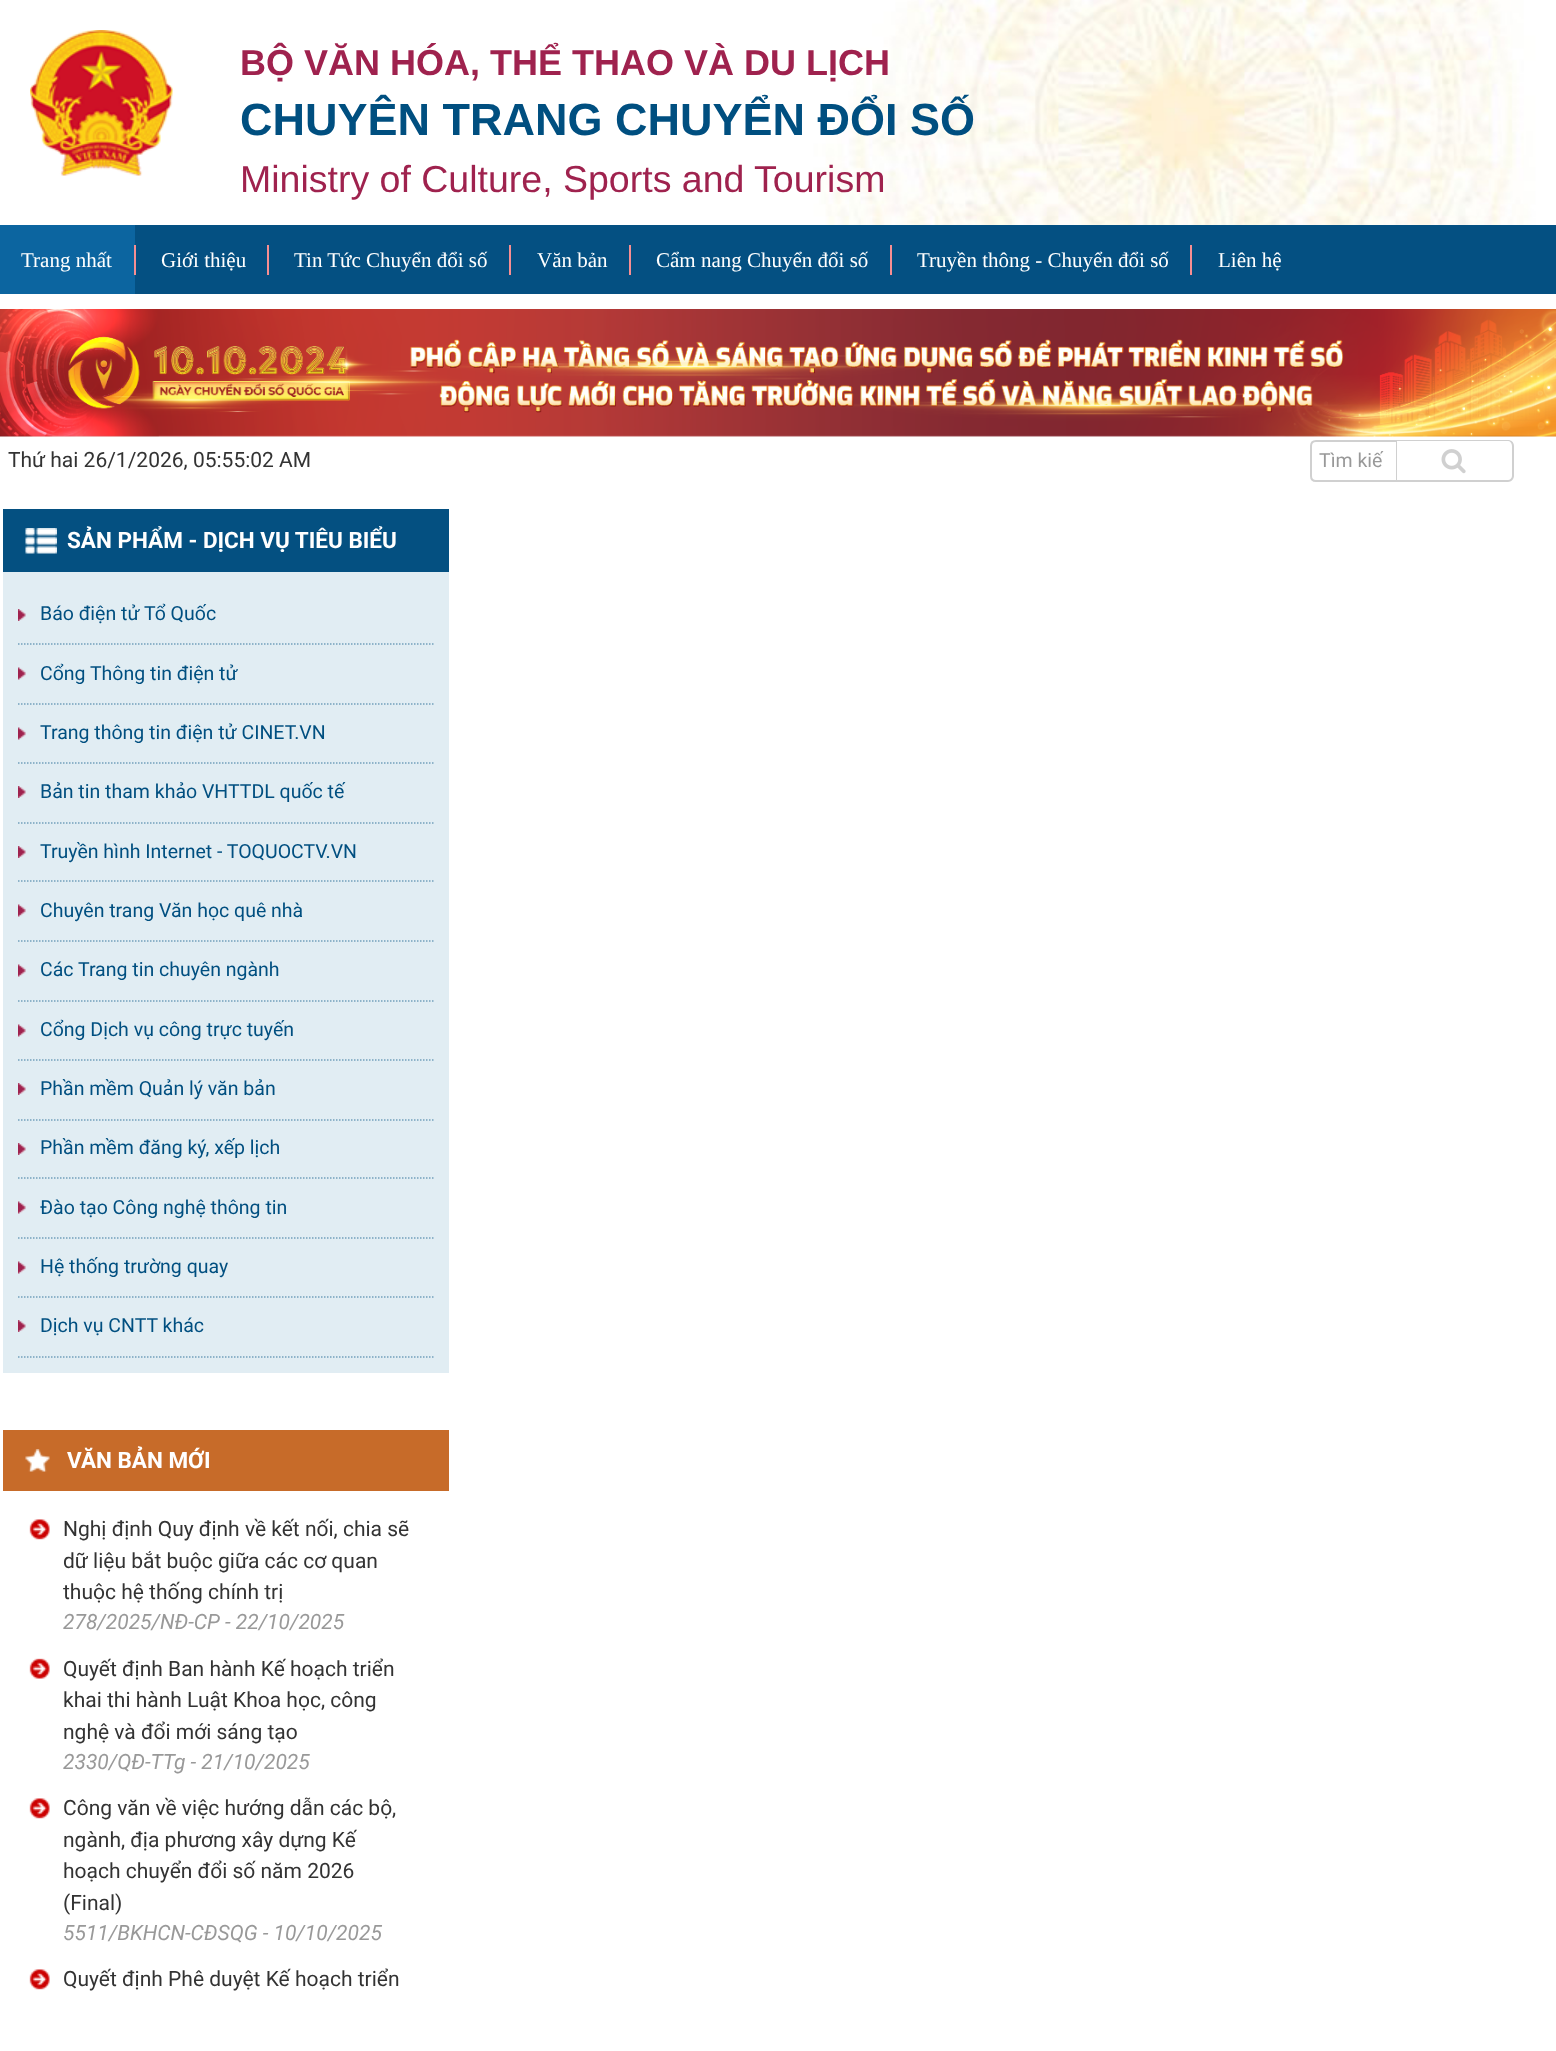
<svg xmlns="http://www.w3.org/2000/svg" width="1556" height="2051">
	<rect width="100%" height="100%" fill="#045082" />
	<image x="0" y="0" width="1556" height="225" href="assets/img1.png" />
	<image x="30" y="30" width="143" height="146" href="assets/img2.png" />
	<text x="240" y="75" font-family="Liberation Sans" font-size="36" font-weight="700" fill="#9F224E">BỘ VĂN HÓA, THỂ THAO VÀ DU LỊCH</text>
	<text x="240" y="135" font-family="Liberation Sans" font-size="45" font-weight="700" fill="#004F80">CHUYÊN TRANG CHUYỂN ĐỔI SỐ</text>
	<text x="240" y="192" font-family="Liberation Sans" font-size="37.5" fill="#9F224E">Ministry of Culture, Sports and Tourism</text>
	<rect x="0" y="294" width="1556" height="15" fill="#FFFFFF" />
	<rect x="0" y="225" width="135" height="69" fill="#0C65A0" />
	<rect x="134" y="245" width="2" height="30" fill="#F68E92" />
	<text x="21" y="267" font-family="Liberation Serif" font-size="21" fill="#FFFFFF">Trang nhất</text>
	<rect x="267" y="245" width="2" height="30" fill="#F68E92" />
	<text x="161" y="267" font-family="Liberation Serif" font-size="21" fill="#FFFFFF">Giới thiệu</text>
	<rect x="509" y="245" width="2" height="30" fill="#F68E92" />
	<text x="294" y="267" font-family="Liberation Serif" font-size="21" fill="#FFFFFF">Tin Tức Chuyển đổi số</text>
	<rect x="629" y="245" width="2" height="30" fill="#F68E92" />
	<text x="537" y="267" font-family="Liberation Serif" font-size="21" fill="#FFFFFF">Văn bản</text>
	<rect x="890" y="245" width="2" height="30" fill="#F68E92" />
	<text x="656" y="267" font-family="Liberation Serif" font-size="21" fill="#FFFFFF">Cẩm nang Chuyển đổi số</text>
	<rect x="1190" y="245" width="2" height="30" fill="#F68E92" />
	<g font-family="Liberation Serif" font-size="21" fill="#FFFFFF">
		<text x="917" y="267">Truyền thông - Chuyển đổi số</text>
		<text x="1218" y="267">Liên hệ</text>
	</g>
	<rect x="0" y="435" width="1556" height="1616" fill="#FFFFFF" />
	<image x="0" y="309" width="1556" height="128" href="assets/img3.png" />
	<text x="8" y="467" font-family="Roboto" font-size="21" fill="#333333">Thứ hai 26/1/2026, 05:55:02 AM</text>
	<path d="M1316 441H1397V481H1316C1313 481 1311 479 1311 476V446C1311 443 1313 441 1316 441Z" fill="none" stroke="#D0D0D0" stroke-width="2" />
	<text x="1319" y="467" font-family="Roboto" font-size="19.5" fill="#999999">Tìm kiế</text>
	<path d="M1397 440H1508C1511.5 440 1514 442.5 1514 446V476C1514 479.5 1511.5 482 1508 482H1397Z" fill="#FFFFFF" />
	<path d="M1396 440H1508C1511 440 1514 442 1514 446V476C1514 479 1511 482 1508 482H1396ZM1396 441H1508C1510 441 1512 443 1512 446V476C1512 478 1510 480 1508 480H1396Z" fill="#D0D0D0" fill-rule="evenodd" />
	<image x="1441" y="449" width="25" height="25" href="assets/img4.png" />
	<rect x="3" y="509" width="446" height="63" fill="#045081" />
	<image x="25" y="528" width="32" height="26" href="assets/img5.png" />
	<text x="67" y="548" font-family="Roboto" font-size="22.5" font-weight="700" fill="#FFFFFF">SẢN PHẨM - DỊCH VỤ TIÊU BIỂU</text>
	<rect x="3" y="572" width="446" height="801" fill="#E1EDF3" />
	<image x="18" y="609" width="8" height="12" href="assets/img6.png" />
	<path d="M18 644H433.5" fill="none" stroke="#73A0BC" stroke-width="1.5" stroke-dasharray="1.5 1.5" />
	<text x="40" y="620" font-family="Roboto" font-size="19.5" fill="#004F80">Báo điện tử Tổ Quốc</text>
	<image x="18" y="667" width="8" height="13" href="assets/img7.png" />
	<path d="M18 704H433.5" fill="none" stroke="#73A0BC" stroke-width="1.5" stroke-dasharray="1.5 1.5" />
	<text x="40" y="680" font-family="Roboto" font-size="19.5" fill="#004F80">Cổng Thông tin điện tử</text>
	<image x="18" y="727" width="8" height="13" href="assets/img7.png" />
	<path d="M18 763H433.5" fill="none" stroke="#73A0BC" stroke-width="1.5" stroke-dasharray="1.5 1.5" />
	<text x="40" y="739" font-family="Roboto" font-size="19.5" fill="#004F80">Trang thông tin điện tử CINET.VN</text>
	<image x="18" y="786" width="8" height="12" href="assets/img6.png" />
	<path d="M18 823H433.5" fill="none" stroke="#73A0BC" stroke-width="1.5" stroke-dasharray="1.5 1.5" />
	<text x="40" y="798" font-family="Roboto" font-size="19.5" fill="#004F80">Bản tin tham khảo VHTTDL quốc tế</text>
	<image x="18" y="846" width="8" height="12" href="assets/img6.png" />
	<path d="M18 881H433.5" fill="none" stroke="#73A0BC" stroke-width="1.5" stroke-dasharray="1.5 1.5" />
	<text x="40" y="858" font-family="Roboto" font-size="19.5" fill="#004F80">Truyền hình Internet - TOQUOCTV.VN</text>
	<image x="18" y="904" width="8" height="13" href="assets/img7.png" />
	<path d="M18 941H433.5" fill="none" stroke="#73A0BC" stroke-width="1.5" stroke-dasharray="1.5 1.5" />
	<text x="40" y="917" font-family="Roboto" font-size="19.5" fill="#004F80">Chuyên trang Văn học quê nhà</text>
	<image x="18" y="964" width="8" height="13" href="assets/img7.png" />
	<path d="M18 1001H433.5" fill="none" stroke="#73A0BC" stroke-width="1.5" stroke-dasharray="1.5 1.5" />
	<text x="40" y="976" font-family="Roboto" font-size="19.5" fill="#004F80">Các Trang tin chuyên ngành</text>
	<image x="18" y="1024" width="8" height="13" href="assets/img7.png" />
	<path d="M18 1060H433.5" fill="none" stroke="#73A0BC" stroke-width="1.5" stroke-dasharray="1.5 1.5" />
	<text x="40" y="1036" font-family="Roboto" font-size="19.5" fill="#004F80">Cổng Dịch vụ công trực tuyến</text>
	<image x="18" y="1083" width="8" height="12" href="assets/img6.png" />
	<path d="M18 1120H433.5" fill="none" stroke="#73A0BC" stroke-width="1.5" stroke-dasharray="1.5 1.5" />
	<text x="40" y="1095" font-family="Roboto" font-size="19.5" fill="#004F80">Phần mềm Quản lý văn bản</text>
	<image x="18" y="1143" width="8" height="12" href="assets/img6.png" />
	<path d="M18 1178H433.5" fill="none" stroke="#73A0BC" stroke-width="1.5" stroke-dasharray="1.5 1.5" />
	<text x="40" y="1154" font-family="Roboto" font-size="19.5" fill="#004F80">Phần mềm đăng ký, xếp lịch</text>
	<image x="18" y="1201" width="8" height="13" href="assets/img7.png" />
	<path d="M18 1238H433.5" fill="none" stroke="#73A0BC" stroke-width="1.5" stroke-dasharray="1.5 1.5" />
	<text x="40" y="1214" font-family="Roboto" font-size="19.5" fill="#004F80">Đào tạo Công nghệ thông tin</text>
	<image x="18" y="1261" width="8" height="13" href="assets/img7.png" />
	<path d="M18 1297H433.5" fill="none" stroke="#73A0BC" stroke-width="1.5" stroke-dasharray="1.5 1.5" />
	<text x="40" y="1273" font-family="Roboto" font-size="19.5" fill="#004F80">Hệ thống trường quay</text>
	<image x="18" y="1320" width="8" height="12" href="assets/img6.png" />
	<path d="M18 1357H433.5" fill="none" stroke="#73A0BC" stroke-width="1.5" stroke-dasharray="1.5 1.5" />
	<text x="40" y="1332" font-family="Roboto" font-size="19.5" fill="#004F80">Dịch vụ CNTT khác</text>
	<rect x="3" y="1430" width="446" height="61" fill="#C76B29" />
	<image x="25" y="1449" width="25" height="23" href="assets/img8.png" />
	<text x="67" y="1468" font-family="Roboto" font-size="22.5" font-weight="700" fill="#FFFFFF">VĂN BẢN MỚI</text>
	<image x="29" y="1519" width="21" height="21" href="assets/img9.png" />
	<g font-family="Roboto" font-size="21" fill="#333333">
		<text x="63" y="1536">Nghị định Quy định về kết nối, chia sẽ</text>
		<text x="63" y="1568">dữ liệu bắt buộc giữa các cơ quan</text>
		<text x="63" y="1599">thuộc hệ thống chính trị</text>
	</g>
	<text x="63" y="1629" font-family="Roboto" font-size="21" font-style="italic" fill="#999999">278/2025/NĐ-CP - 22/10/2025</text>
	<image x="29" y="1658" width="21" height="21" href="assets/img10.png" />
	<g font-family="Roboto" font-size="21" fill="#333333">
		<text x="63" y="1676">Quyết định Ban hành Kế hoạch triển</text>
		<text x="63" y="1707">khai thi hành Luật Khoa học, công</text>
		<text x="63" y="1739">nghệ và đổi mới sáng tạo</text>
	</g>
	<text x="63" y="1769" font-family="Roboto" font-size="21" font-style="italic" fill="#999999">2330/QĐ-TTg - 21/10/2025</text>
	<image x="29" y="1798" width="21" height="21" href="assets/img9.png" />
	<g font-family="Roboto" font-size="21" fill="#333333">
		<text x="63" y="1815">Công văn về việc hướng dẫn các bộ,</text>
		<text x="63" y="1847">ngành, địa phương xây dựng Kế</text>
		<text x="63" y="1878">hoạch chuyển đổi số năm 2026</text>
		<text x="63" y="1910">(Final)</text>
	</g>
	<text x="63" y="1940" font-family="Roboto" font-size="21" font-style="italic" fill="#999999">5511/BKHCN-CĐSQG - 10/10/2025</text>
	<image x="29" y="1969" width="21" height="21" href="assets/img9.png" />
	<text x="63" y="1986" font-family="Roboto" font-size="21" fill="#333333">Quyết định Phê duyệt Kế hoạch triển</text>
</svg>
